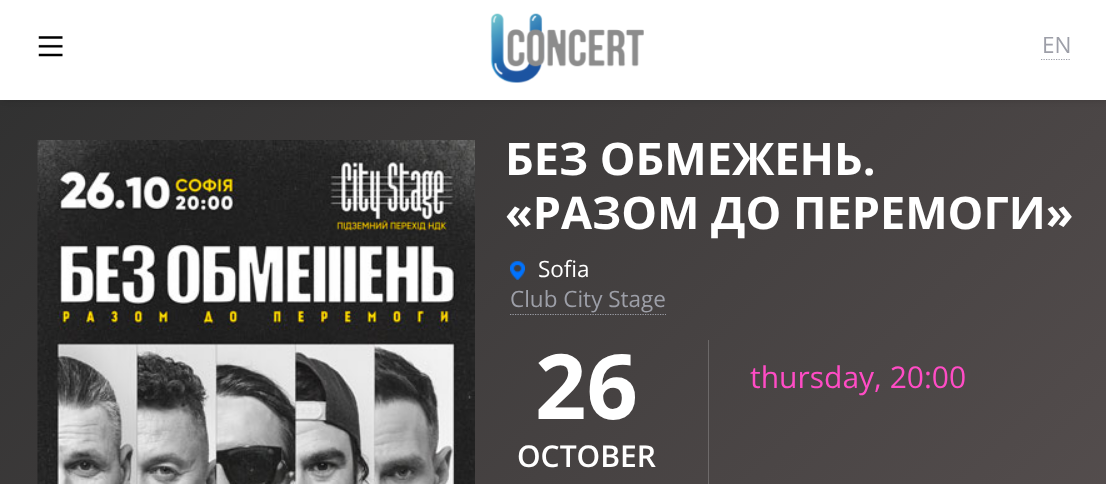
<svg xmlns="http://www.w3.org/2000/svg" width="1106" height="484">
	<defs>
		<linearGradient id="g1" gradientUnits="userSpaceOnUse" x1="40" y1="60" x2="1066" y2="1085"><stop offset="0" stop-color="#313131" /><stop offset="1" stop-color="#605757" /></linearGradient>
		<linearGradient id="g2" gradientUnits="userSpaceOnUse" x1="40" y1="60" x2="1066" y2="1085"><stop offset="0" stop-color="#5A5A5A" /><stop offset="1" stop-color="#807979" /></linearGradient>
	</defs>
	<rect width="100%" height="100%" fill="#FFFFFF" />
	<rect x="0" y="100" width="1106" height="384" fill="url(#g1)" />
	<rect x="3" y="0" width="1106" height="100" fill="#000000" fill-opacity="0.14" filter="blur(3px)" />
	<rect x="0" y="0" width="1106" height="100" fill="#FFFFFF" />
	<image x="38" y="36" width="25" height="21" href="assets/img1.png" />
	<image x="490" y="13" width="154" height="70" href="assets/img2.png" />
	<path d="M1041 59.5H1071" fill="none" stroke="#9D9FA8" stroke-width="1.2" stroke-dasharray="1.25 1.25" />
	<text x="1042" y="53" font-family="Open Sans" font-size="22.5" fill="#9D9FA8">EN</text>
	<rect x="708" y="340" width="1" height="144" fill="url(#g2)" />
	<image x="37" y="140" width="438" height="344" href="assets/img3.png" />
	<g font-family="Open Sans" font-size="45" font-weight="700" fill="#FFFFFF">
		<text x="505" y="175">БЕЗ ОБМЕЖЕНЬ.</text>
		<text x="505" y="229">«РАЗОМ ДО ПЕРЕМОГИ»</text>
	</g>
	<image x="510" y="261" width="15" height="19" href="assets/img4.png" />
	<text x="538" y="277" font-family="Open Sans" font-size="22.5" fill="#FFFFFF">Sofia</text>
	<text x="510" y="307" font-family="Open Sans" font-size="22.5" fill="#9D9FA8">Club City Stage</text>
	<path d="M510 314.5H666" fill="none" stroke="#9D9FA8" stroke-width="1.2" stroke-dasharray="1.25 1.25" />
	<text x="535" y="419" font-family="Open Sans" font-size="90" font-weight="700" fill="#FFFFFF">26</text>
	<text x="517" y="467" font-family="Open Sans" font-size="30" font-weight="600" fill="#FFFFFF">OCTOBER</text>
	<text x="750" y="388" font-family="Open Sans" font-size="30" fill="#FF4CC5">thursday, 20:00</text>
</svg>
